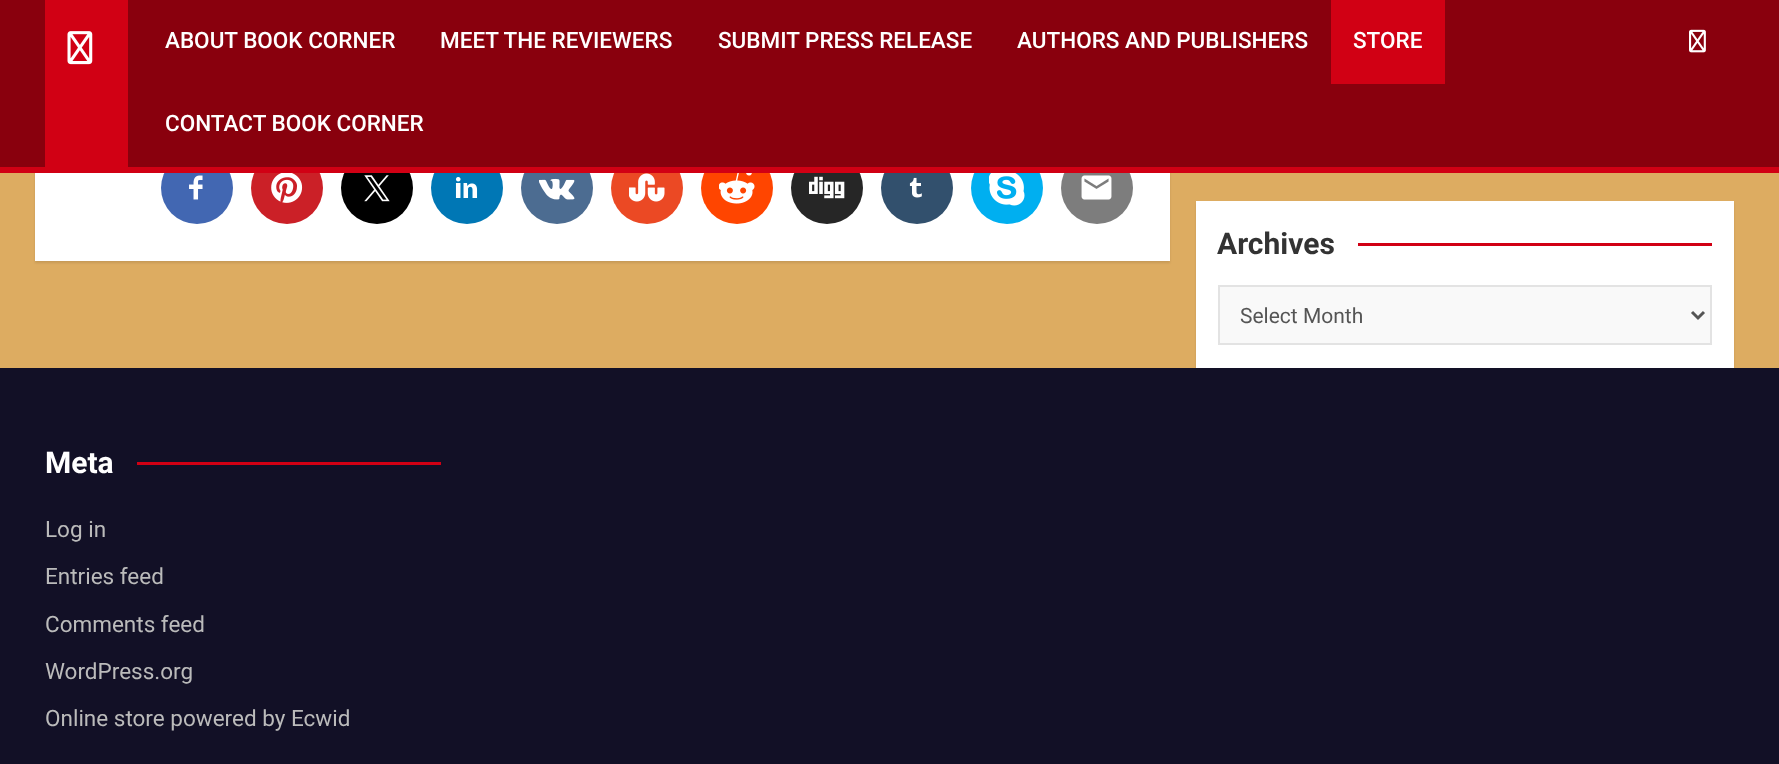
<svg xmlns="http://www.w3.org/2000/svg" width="1779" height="764">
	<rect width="100%" height="100%" fill="#DDAC61" />
	<rect x="35" y="-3" width="1135" height="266" fill="#000000" fill-opacity="0.1" filter="blur(1px)" />
	<rect x="35" y="173" width="1135" height="88" fill="#FFFFFF" />
	<circle cx="197" cy="188" r="36" fill="#4267B2" />
	<circle cx="287" cy="188" r="36" fill="#CB2027" />
	<circle cx="377" cy="188" r="36" fill="#000000" />
	<circle cx="467" cy="188" r="36" fill="#0077B5" />
	<circle cx="557" cy="188" r="36" fill="#4C6C91" />
	<circle cx="647" cy="188" r="36" fill="#EB4924" />
	<circle cx="737" cy="188" r="36" fill="#FF4500" />
	<circle cx="827" cy="188" r="36" fill="#262626" />
	<circle cx="917" cy="188" r="36" fill="#32506D" />
	<circle cx="1007" cy="188" r="36" fill="#00AFF0" />
	<circle cx="1097" cy="188" r="36" fill="#7D7D7D" />
	<rect x="0" y="0" width="1779" height="167" fill="#89000D" />
	<rect x="0" y="167" width="1779" height="6" fill="#D10014" />
	<rect x="45" y="0" width="83" height="167" fill="#D10014" />
	<image x="67" y="31" width="26" height="34" href="assets/img1.png" />
	<g font-family="Roboto" font-size="22.5" font-weight="500" fill="#FFFFFF">
		<text x="165" y="48">ABOUT BOOK CORNER</text>
		<text x="440" y="48">MEET THE REVIEWERS</text>
		<text x="718" y="48">SUBMIT PRESS RELEASE</text>
		<text x="1017" y="48">AUTHORS AND PUBLISHERS</text>
	</g>
	<rect x="1331" y="0" width="114" height="84" fill="#D10014" />
	<g font-family="Roboto" font-size="22.5" font-weight="500" fill="#FFFFFF">
		<text x="1353" y="48">STORE</text>
		<text x="165" y="131">CONTACT BOOK CORNER</text>
	</g>
	<image x="1689" y="29" width="17" height="24" href="assets/img2.png" />
	<image x="189" y="175" width="14" height="25" href="assets/img3.png" />
	<image x="271" y="173" width="32" height="30" href="assets/img4.png" />
	<image x="364" y="175" width="26" height="27" href="assets/img5.png" />
	<image x="455" y="177" width="23" height="21" href="assets/img6.png" />
	<image x="539" y="178" width="36" height="22" href="assets/img7.png" />
	<image x="629" y="173" width="36" height="29" href="assets/img8.png" />
	<image x="719" y="173" width="36" height="31" href="assets/img9.png" />
	<image x="809" y="176" width="36" height="23" href="assets/img10.png" />
	<image x="909" y="177" width="13" height="21" href="assets/img11.png" />
	<image x="989" y="173" width="36" height="33" href="assets/img12.png" />
	<image x="1081" y="175" width="31" height="25" href="assets/img13.png" />
	<rect x="1196" y="203" width="538" height="166" fill="#000000" fill-opacity="0.1" filter="blur(1px)" />
	<rect x="1196" y="201" width="538" height="167" fill="#FFFFFF" />
	<text x="1217" y="254" font-family="Roboto" font-size="30" font-weight="700" fill="#333333">Archives</text>
	<rect x="1358" y="243" width="354" height="3" fill="#D10014" />
	<rect x="1219" y="286" width="492" height="58" fill="#F9F9F9" stroke="#E3E3E3" stroke-width="2" />
	<path d="M1692 312L1698 318L1704 312" fill="none" stroke="#555555" stroke-width="3" />
	<text x="1240" y="323" font-family="Roboto" font-size="21" fill="#555555">Select Month</text>
	<rect x="0" y="368" width="1779" height="396" fill="#121026" />
	<text x="45" y="473" font-family="Roboto" font-size="30" font-weight="700" fill="#FFFFFF">Meta</text>
	<rect x="137" y="462" width="304" height="3" fill="#D10014" />
	<g font-family="Roboto" font-size="22.5" fill="#BBBBBB">
		<text x="45" y="537">Log in</text>
		<text x="45" y="584">Entries feed</text>
		<text x="45" y="632">Comments feed</text>
		<text x="45" y="679">WordPress.org</text>
		<text x="45" y="726">Online store powered by Ecwid</text>
	</g>
</svg>
